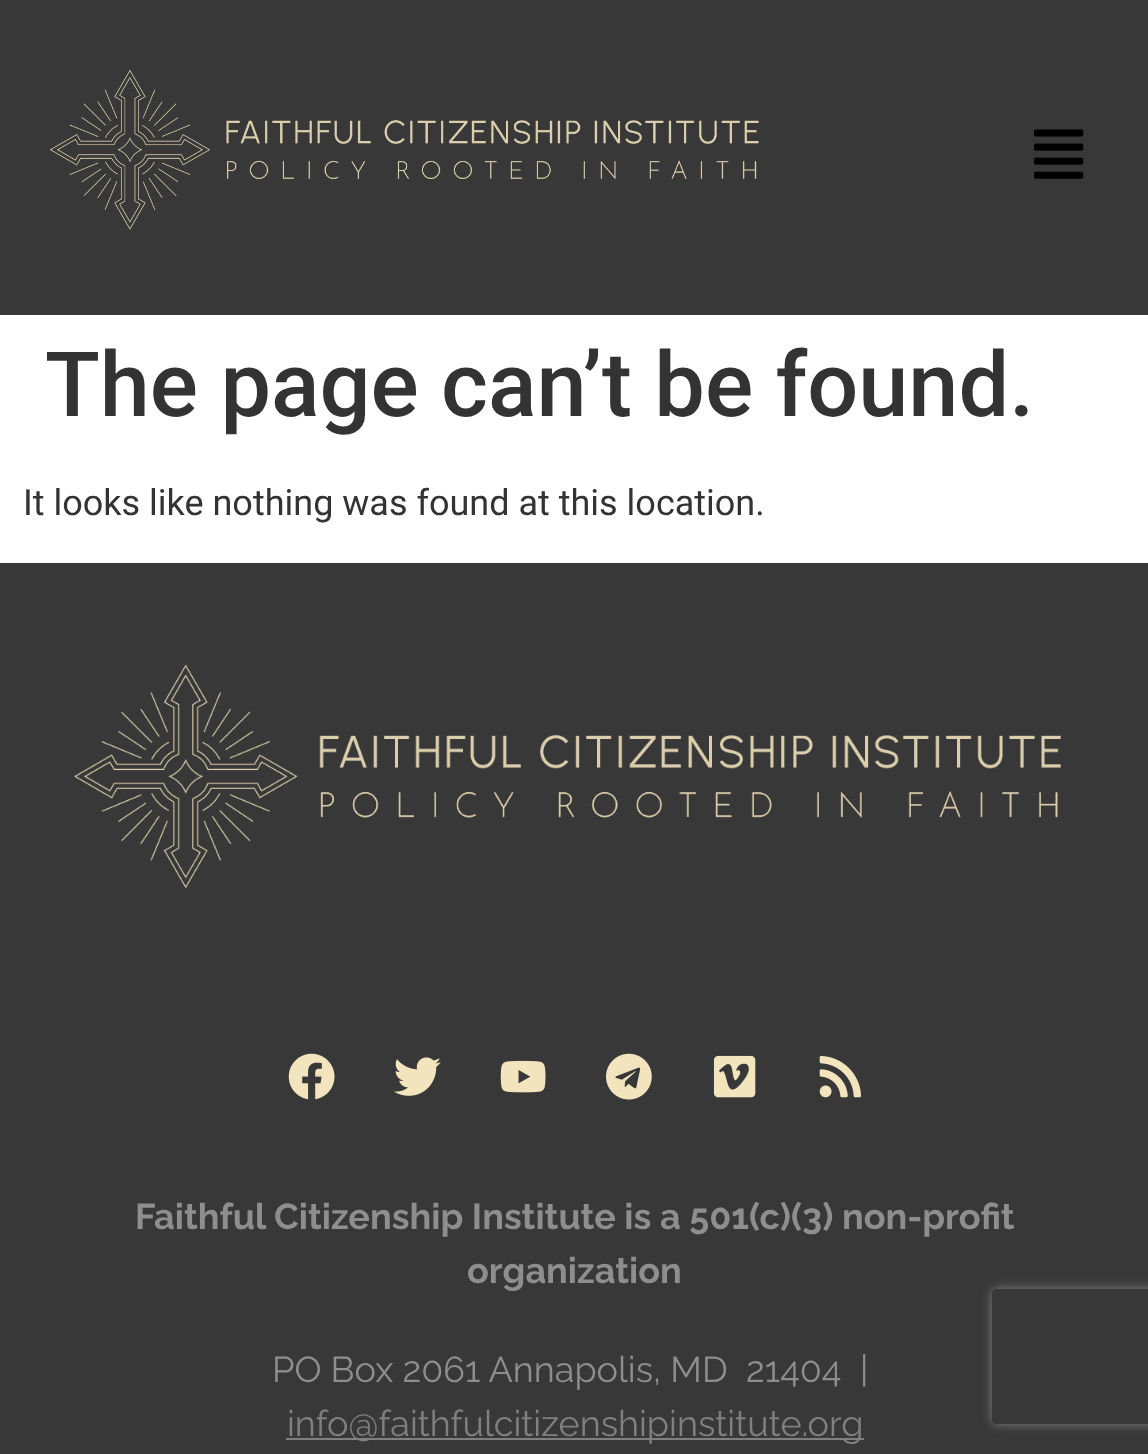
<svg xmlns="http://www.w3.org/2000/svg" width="1148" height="1454">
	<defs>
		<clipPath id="clip1"><path d="M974 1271H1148V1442H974ZM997 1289H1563C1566 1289 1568 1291 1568 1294V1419C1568 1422 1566 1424 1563 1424H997C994 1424 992 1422 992 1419V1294C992 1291 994 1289 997 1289Z" clip-rule="evenodd" /></clipPath>
	</defs>
	<rect width="100%" height="100%" fill="#FFFFFF" />
	<rect x="0" y="0" width="1148" height="315" fill="#383838" />
	<image x="50" y="70" width="709" height="160" href="assets/img1.png" />
	<image x="1034" y="129" width="50" height="50" href="assets/img2.png" />
	<text x="45" y="416" font-family="Roboto" font-size="90" font-weight="500" fill="#333333">The page can’t be found.</text>
	<text x="23" y="515" font-family="Roboto" font-size="36" fill="#333333">It looks like nothing was found at this location.</text>
	<rect x="0" y="563" width="1148" height="891" fill="#383838" />
	<image x="74" y="665" width="987" height="224" href="assets/img3.png" />
	<image x="288" y="1053" width="47" height="47" href="assets/img4.png" />
	<image x="394" y="1057" width="47" height="39" href="assets/img5.png" />
	<image x="500" y="1060" width="46" height="33" href="assets/img6.png" />
	<image x="606" y="1053" width="46" height="47" href="assets/img7.png" />
	<image x="713" y="1055" width="43" height="43" href="assets/img8.png" />
	<image x="819" y="1056" width="42" height="42" href="assets/img9.png" />
	<g font-family="Raleway" font-size="36" font-weight="700" fill="#8E8E8E">
		<text x="135" y="1229">Faithful Citizenship Institute is a 501(c)(3) non-profit</text>
		<text x="467" y="1283">organization</text>
	</g>
	<text x="272" y="1382" font-family="Raleway" font-size="36" fill="#8E8E8E" xml:space="preserve">PO Box 2061 Annapolis, MD  21404  |</text>
	<rect x="286" y="1438" width="578" height="2" fill="#808080" />
	<text x="287" y="1436" font-family="Raleway" font-size="36" fill="#808080">info@faithfulcitizenshipinstitute.org</text>
	<g clip-path="url(#clip1)">
		<rect x="992" y="1289" width="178" height="135" rx="5" fill="#808080" filter="blur(5.5px)" />
	</g>
</svg>
